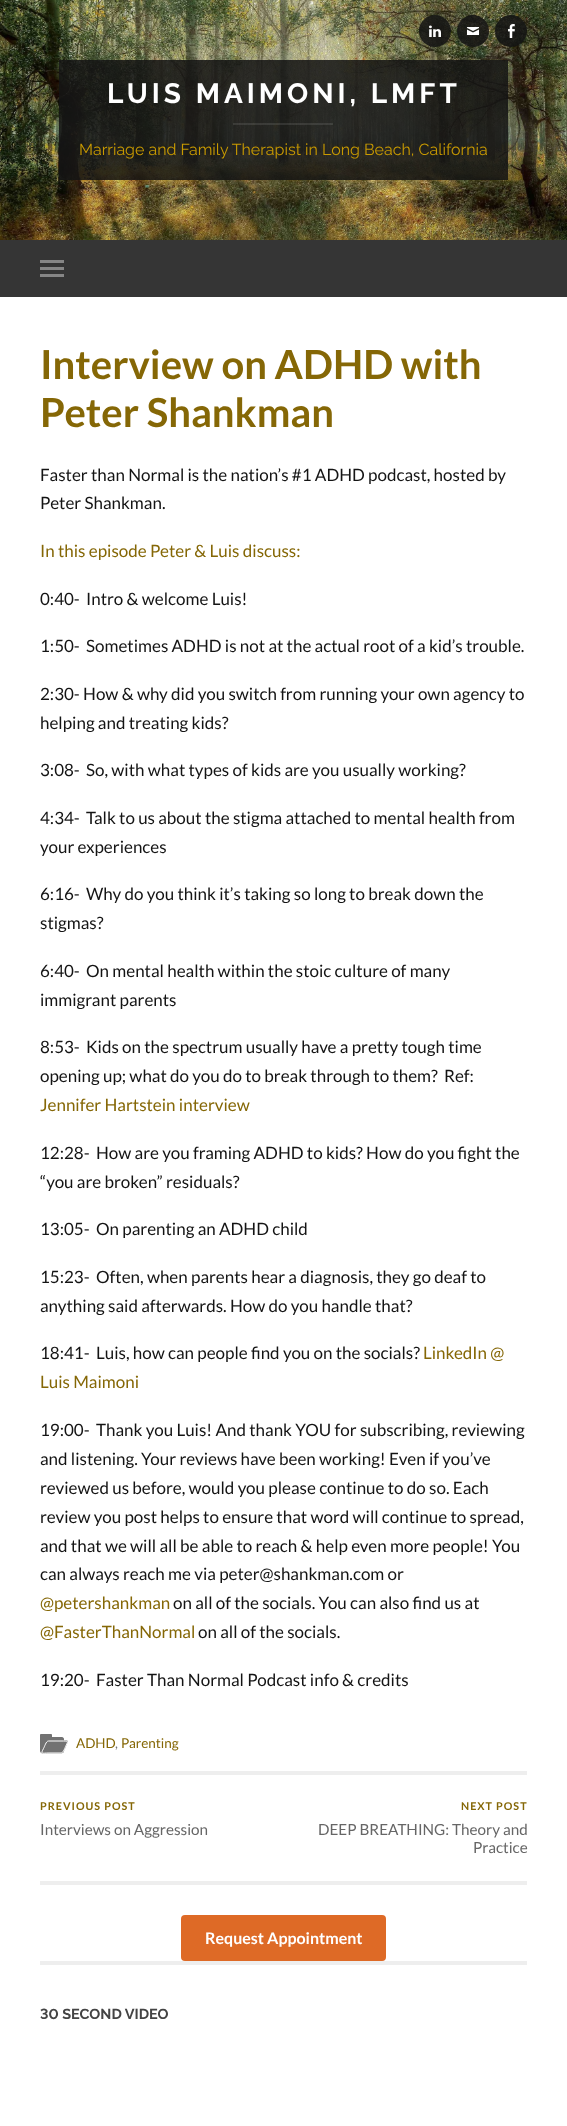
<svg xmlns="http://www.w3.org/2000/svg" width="567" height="2126">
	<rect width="100%" height="100%" fill="#FFFFFF" />
	<image x="0" y="0" width="567" height="240" href="assets/img1.png" />
	<circle cx="435" cy="31" r="16" fill="#141414" fill-opacity="0.86" />
	<image x="429" y="25" width="12" height="12" href="assets/img2.png" />
	<circle cx="473" cy="31" r="16" fill="#141414" fill-opacity="0.86" />
	<image x="467" y="27" width="12" height="8" href="assets/img3.png" />
	<circle cx="511" cy="31" r="16" fill="#141414" fill-opacity="0.86" />
	<image x="508" y="24" width="7" height="14" href="assets/img4.png" />
	<rect x="59" y="60" width="449" height="120" fill="#141414" fill-opacity="0.86" />
	<text x="107" y="103" font-family="Raleway" font-size="28" font-weight="100" letter-spacing="4" fill="#FFFFFF">LUIS MAIMONI, LMFT</text>
	<rect x="233" y="123" width="100" height="2" fill="#FFFFFF" fill-opacity="0.1" />
	<text x="79" y="155" font-family="'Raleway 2'" font-size="16" font-weight="100" fill="#C99A00">Marriage and Family Therapist in Long Beach, California</text>
	<rect x="0" y="240" width="567" height="57" fill="#353535" />
	<rect x="40" y="260" width="24" height="3" fill="#868686" />
	<rect x="40" y="267" width="24" height="3" fill="#868686" />
	<rect x="40" y="274" width="24" height="3" fill="#868686" />
	<g font-family="Lato" font-size="40" font-weight="700" fill="#856706">
		<text x="40" y="379">Interview on ADHD with</text>
		<text x="40" y="427">Peter Shankman</text>
	</g>
	<g font-family="Lato" font-size="17" fill="#141414">
		<text x="40" y="481">Faster than Normal is the nation’s #1 ADHD podcast, hosted by</text>
		<text x="40" y="509">Peter Shankman.</text>
	</g>
	<text x="40" y="557" font-family="Lato" font-size="17" fill="#856706">In this episode Peter &amp; Luis discuss:</text>
	<g font-family="Lato" font-size="17" fill="#141414">
		<text x="40" y="605">0:40-</text>
		<text x="86" y="605">Intro &amp; welcome Luis!</text>
		<text x="40" y="652">1:50-</text>
		<text x="86" y="652">Sometimes ADHD is not at the actual root of a kid’s trouble.</text>
		<text x="40" y="700">2:30- How &amp; why did you switch from running your own agency to</text>
		<text x="40" y="729">helping and treating kids?</text>
		<text x="40" y="776">3:08-</text>
		<text x="86" y="776">So, with what types of kids are you usually working?</text>
		<text x="40" y="824">4:34-</text>
		<text x="86" y="824">Talk to us about the stigma attached to mental health from</text>
		<text x="40" y="853">your experiences</text>
		<text x="40" y="900">6:16-</text>
		<text x="86" y="900">Why do you think it’s taking so long to break down the</text>
		<text x="40" y="929">stigmas?</text>
		<text x="40" y="977">6:40-</text>
		<text x="86" y="977">On mental health within the stoic culture of many</text>
		<text x="40" y="1006">immigrant parents</text>
		<text x="40" y="1053">8:53-</text>
		<text x="86" y="1053">Kids on the spectrum usually have a pretty tough time</text>
		<text x="40" y="1082">opening up; what do you do to break through to them?</text>
		<text x="444" y="1082">Ref:</text>
	</g>
	<text x="40" y="1111" font-family="Lato" font-size="17" fill="#856706">Jennifer Hartstein interview</text>
	<g font-family="Lato" font-size="17" fill="#141414">
		<text x="40" y="1159">12:28-</text>
		<text x="96" y="1159">How are you framing ADHD to kids? How do you fight the</text>
		<text x="40" y="1188">“you are broken” residuals?</text>
		<text x="40" y="1235">13:05-</text>
		<text x="96" y="1235">On parenting an ADHD child</text>
		<text x="40" y="1283">15:23-</text>
		<text x="96" y="1283">Often, when parents hear a diagnosis, they go deaf to</text>
		<text x="40" y="1312">anything said afterwards. How do you handle that?</text>
		<text x="40" y="1359">18:41-</text>
		<text x="96" y="1359">Luis, how can people find you on the socials?</text>
	</g>
	<g font-family="Lato" font-size="17" fill="#856706">
		<text x="423" y="1359">LinkedIn @</text>
		<text x="40" y="1388">Luis Maimoni</text>
	</g>
	<g font-family="Lato" font-size="17" fill="#141414">
		<text x="40" y="1436">19:00-</text>
		<text x="96" y="1436">Thank you Luis! And thank YOU for subscribing, reviewing</text>
		<text x="40" y="1465">and listening. Your reviews have been working! Even if you’ve</text>
		<text x="40" y="1494">reviewed us before, would you please continue to do so. Each</text>
		<text x="40" y="1523">review you post helps to ensure that word will continue to spread,</text>
		<text x="40" y="1552">and that we will all be able to reach &amp; help even more people! You</text>
		<text x="40" y="1580">can always reach me via peter@shankman.com or</text>
	</g>
	<text x="40" y="1609" font-family="Lato" font-size="17" fill="#856706">@petershankman</text>
	<text x="173" y="1609" font-family="Lato" font-size="17" fill="#141414">on all of the socials. You can also find us at</text>
	<text x="40" y="1638" font-family="Lato" font-size="17" fill="#856706">@FasterThanNormal</text>
	<g font-family="Lato" font-size="17" fill="#141414">
		<text x="198" y="1638">on all of the socials.</text>
		<text x="40" y="1686">19:20-</text>
		<text x="96" y="1686">Faster Than Normal Podcast info &amp; credits</text>
	</g>
	<path d="M40 1737H62C63 1737 64 1738 64 1739V1751C64 1752 63 1753 62 1753H42C41 1753 40 1752 40 1751Z" fill="#727272" />
	<path d="M41 1734H51C51.5 1734 52 1734.5 52 1735V1737H40V1735C40 1734.5 40.5 1734 41 1734Z" fill="#727272" />
	<path d="M48.5 1740.5H60.5C65.5 1740.5 69.5 1739 67 1744L64.5 1750C62.5 1754 62 1753.5 57.5 1753.5H42.5C39.5 1753.5 43.5 1748 43.5 1747C44.5 1745 45.5 1740.5 48.5 1740.5Z" fill="#727272" />
	<path d="M48.5 1741H63.5C68.5 1741 68 1741.5 66 1745.5C65 1747.5 63.5 1753 61 1753H49C41.5 1753 40.5 1754.5 43.5 1748.5C44.5 1747 46 1741 48.5 1741Z" fill="none" stroke="#FFFFFF" />
	<text x="76" y="1748" font-family="Lato" font-size="13.5" fill="#856706">ADHD</text>
	<text x="115" y="1748" font-family="Lato" font-size="13.5" fill="#767676">,</text>
	<text x="121" y="1748" font-family="Lato" font-size="13.5" fill="#856706">Parenting</text>
	<rect x="40" y="1771" width="487" height="4" fill="#EEEEEE" />
	<rect x="40" y="1881" width="487" height="4" fill="#EEEEEE" />
	<text x="40" y="1810" font-family="Lato" font-size="10.75" font-weight="700" letter-spacing="1" fill="#856706">PREVIOUS POST</text>
	<text x="40" y="1835" font-family="Lato" font-size="15.25" fill="#666666">Interviews on Aggression</text>
	<text x="461" y="1810" font-family="Lato" font-size="10.75" font-weight="700" letter-spacing="1" fill="#856706">NEXT POST</text>
	<g font-family="Lato" font-size="15.25" fill="#666666">
		<text x="318" y="1835">DEEP BREATHING: Theory and</text>
		<text x="473" y="1853">Practice</text>
	</g>
	<rect x="40" y="1961" width="487" height="4" fill="#EEEEEE" />
	<rect x="181" y="1915" width="205" height="46" rx="4" fill="#DE6A26" />
	<text x="205" y="1944" font-family="Lato" font-size="16" font-weight="700" fill="#FFFFFF">Request Appointment</text>
	<text x="40" y="2019" font-family="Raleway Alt" font-size="14.5" font-weight="100" fill="#444444">30 SECOND VIDEO</text>
</svg>
